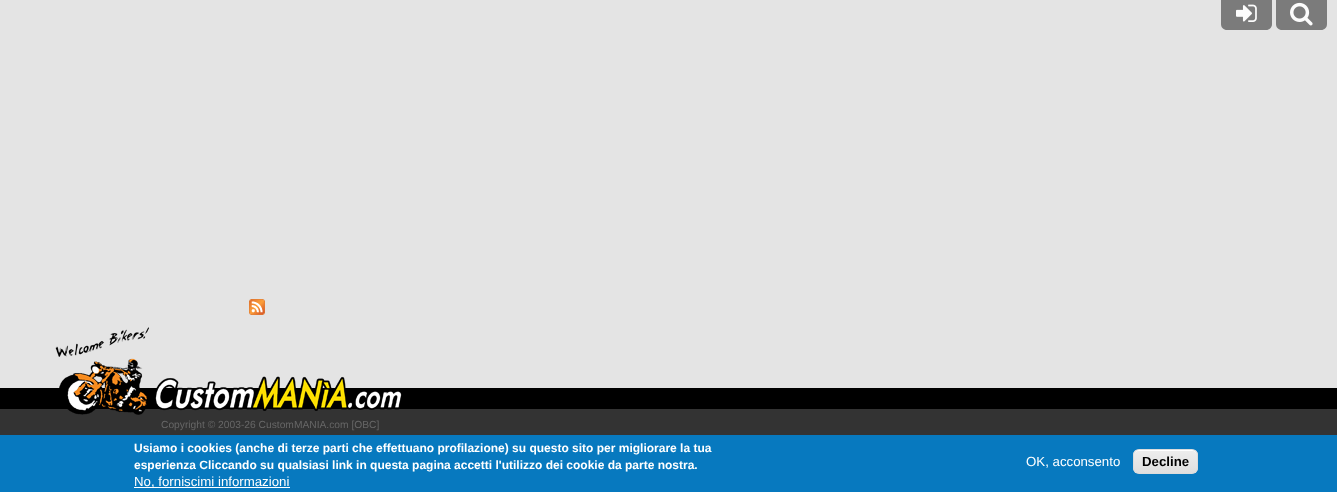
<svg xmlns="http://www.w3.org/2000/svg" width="1337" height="492">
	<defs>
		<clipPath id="clip1"><rect x="1133" y="449" width="65" height="25" rx="6" /></clipPath>
		<linearGradient id="g1" gradientUnits="userSpaceOnUse" x1="1166" y1="450" x2="1166" y2="473"><stop offset="0.05" stop-color="#EDEDED" /><stop offset="1" stop-color="#DFDFDF" /></linearGradient>
	</defs>
	<rect width="100%" height="100%" fill="#E4E4E4" />
	<path d="M1221 0H1272V24C1272 27.5 1269.5 30 1266 30H1227C1223.5 30 1221 27.5 1221 24Z" fill="#7B7B7B" />
	<image x="1236" y="4" width="21" height="18" href="assets/img1.png" />
	<path d="M1276 0H1327V24C1327 27.5 1324.5 30 1321 30H1282C1278.5 30 1276 27.5 1276 24Z" fill="#7B7B7B" />
	<image x="1290" y="2" width="23" height="24" href="assets/img2.png" />
	<image x="249" y="299" width="16" height="16" href="assets/img3.png" />
	<rect x="0" y="409" width="1337" height="26" fill="#333333" />
	<rect x="0" y="388" width="1337" height="21" fill="#000000" />
	<image x="55" y="327" width="347" height="88" href="assets/img4.png" />
	<text x="161" y="428" font-family="Liberation Sans" font-size="10.25" fill="#666666">Copyright © 2003-26 CustomMANIA.com [OBC]</text>
	<rect x="0" y="435" width="1337" height="57" fill="#0779BF" />
	<g font-family="Liberation Sans" font-size="12" font-weight="700" fill="#FFFFFF">
		<text x="134" y="452">Usiamo i cookies (anche di terze parti che effettuano profilazione) su questo sito per migliorare la tua</text>
		<text x="134" y="469">esperienza Cliccando su qualsiasi link in questa pagina accetti l'utilizzo dei cookie da parte nostra.</text>
	</g>
	<rect x="134" y="487" width="156" height="1" fill="#FFFFFF" />
	<g font-family="Liberation Sans" font-size="13.25" fill="#FFFFFF">
		<text x="134" y="486">No, forniscimi informazioni</text>
		<text x="1026" y="466">OK, acconsento</text>
	</g>
	<g clip-path="url(#clip1)">
		<rect x="1133" y="450" width="65" height="23" fill="url(#g1)" />
	</g>
	<path d="M1139 451H1192C1195 451 1197 453 1197 456C1197 448 1189 450 1183 450H1148C1142 450 1134 448 1134 456C1134 453 1136 451 1139 451Z" fill="#FFFFFF" />
	<rect x="1133.5" y="449.5" width="64" height="24" rx="5.5" fill="none" stroke="#DCDCDC" />
	<text x="1142" y="466" font-family="Liberation Sans" font-size="13.25" font-weight="700" fill="#000000">Decline</text>
</svg>
